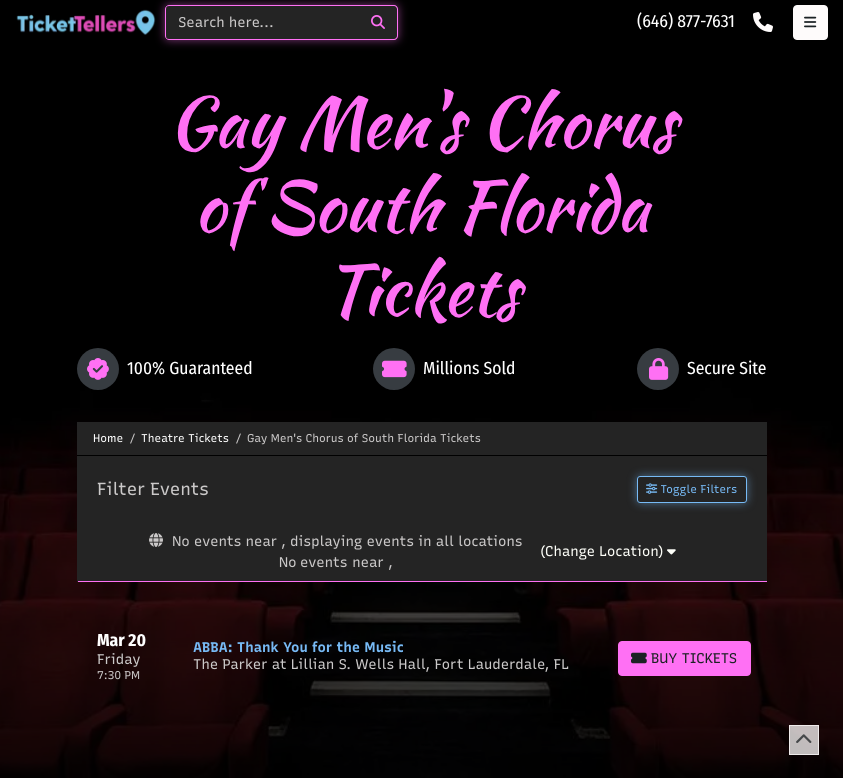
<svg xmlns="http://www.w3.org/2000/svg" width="843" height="778">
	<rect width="100%" height="100%" fill="#FFFFFF" />
	<image x="0" y="0" width="843" height="778" href="assets/img6.png" />
	<image x="16" y="9" width="140" height="26" href="assets/img1.png" />
	<rect x="165" y="5" width="233" height="35" fill="#FF70F4" fill-opacity="0.5" filter="blur(5px)" />
	<path d="M169 5.5H359.5V39.5H169C167 39.5 165.5 38 165.5 36V9C165.5 7 167 5.5 169 5.5Z" fill="#242424" stroke="#FF70F4" />
	<image x="179" y="16" width="94" height="12" href="assets/img2.png" />
	<path d="M359 5H394C396 5 398 7 398 9V36C398 38 396 40 394 40H359Z" fill="#242424" />
	<path d="M359 5H394C396 5 398 7 398 9V36C398 38 396 40 394 40H359ZM359 6H394C395.5 6 397 7.5 397 9V36C397 37.5 395.5 39 394 39H359Z" fill="#FF70F4" fill-rule="evenodd" />
	<image x="371" y="15" width="14" height="14" href="assets/img3.png" />
	<text x="637" y="27" font-family="Fira Sans Condensed" font-size="17.5" fill="#FFFFFF">(646) 877-7631</text>
	<image x="753" y="12" width="20" height="20" href="assets/img4.png" />
	<rect x="793.5" y="5.5" width="34" height="34" rx="3.5" fill="#FEFBFB" stroke="#FEFBFB" />
	<image x="804" y="16" width="13" height="12" href="assets/img5.png" />
	<g font-family="Kaushan Script" font-size="70" fill="#FF70F4">
		<text x="168" y="147">Gay Men's Chorus</text>
		<text x="194" y="231">of South Florida</text>
		<text x="324" y="315">Tickets</text>
	</g>
	<circle cx="98" cy="369" r="21" fill="#495057" fill-opacity="0.75" />
	<image x="87" y="358" width="22" height="22" href="assets/img7.png" />
	<text x="127" y="374" font-family="Fira Sans Condensed" font-size="17.5" fill="#FFFFFF">100% Guaranteed</text>
	<circle cx="394" cy="369" r="21" fill="#495057" fill-opacity="0.75" />
	<image x="382" y="360" width="25" height="18" href="assets/img8.png" />
	<text x="423" y="374" font-family="Fira Sans Condensed" font-size="17.5" fill="#FFFFFF">Millions Sold</text>
	<circle cx="658" cy="369" r="21" fill="#495057" fill-opacity="0.75" />
	<image x="649" y="358" width="20" height="22" href="assets/img9.png" />
	<text x="687" y="374" font-family="Fira Sans Condensed" font-size="17.5" fill="#FFFFFF">Secure Site</text>
	<rect x="77" y="422" width="690" height="33" fill="#242424" />
	<rect x="77" y="455" width="690" height="1" fill="#000000" />
	<image x="93" y="434" width="30" height="9" href="assets/img10.png" />
	<image x="130" y="433" width="5" height="11" href="assets/img11.png" />
	<image x="141" y="433" width="88" height="10" href="assets/img12.png" />
	<image x="236" y="433" width="5" height="11" href="assets/img11.png" />
	<image x="247" y="433" width="234" height="12" href="assets/img13.png" />
	<rect x="77" y="456" width="690" height="67" fill="#242424" />
	<image x="97" y="481" width="111" height="15" href="assets/img14.png" />
	<rect x="637" y="476" width="110" height="27" rx="3" fill="#77BAF5" fill-opacity="0.5" filter="blur(5px)" />
	<rect x="637.5" y="476.5" width="109" height="26" rx="2.5" fill="#242424" stroke="#77BAF5" />
	<image x="646" y="483" width="12" height="11" href="assets/img15.png" />
	<image x="661" y="484" width="76" height="12" href="assets/img16.png" />
	<rect x="78" y="523" width="688" height="58" fill="#242424" />
	<rect x="766" y="523" width="1" height="59" fill="#242424" />
	<rect x="77" y="581" width="690" height="1" fill="#FF70F4" />
	<rect x="77" y="523" width="1" height="59" fill="#242424" />
	<image x="149" y="533" width="14" height="14" href="assets/img17.png" />
	<image x="173" y="536" width="104" height="11" href="assets/img18.png" />
	<image x="282" y="535" width="240" height="15" href="assets/img19.png" />
	<image x="279" y="557" width="17" height="11" href="assets/img20.png" />
	<image x="301" y="557" width="46" height="11" href="assets/img21.png" />
	<image x="353" y="559" width="31" height="9" href="assets/img22.png" />
	<image x="389" y="565" width="3" height="5" href="assets/img23.png" />
	<image x="541" y="545" width="122" height="15" href="assets/img24.png" />
	<image x="667" y="549" width="9" height="6" href="assets/img25.png" />
	<text x="97" y="646" font-family="Fira Sans Condensed" font-size="17.5" font-weight="700" fill="#FFFFFF">Mar 20</text>
	<image x="97" y="653" width="43" height="14" href="assets/img26.png" />
	<image x="97" y="670" width="43" height="10" href="assets/img27.png" />
	<image x="193" y="640" width="210" height="13" href="assets/img28.png" />
	<image x="193" y="658" width="376" height="14" href="assets/img29.png" />
	<rect x="618.5" y="641.5" width="132" height="34" rx="3.5" fill="#FF70F4" stroke="#FF70F4" />
	<image x="631" y="652" width="16" height="12" href="assets/img30.png" />
	<image x="651" y="652" width="86" height="12" href="assets/img31.png" />
	<rect x="789" y="725" width="30" height="30" fill="#FEFBFB" fill-opacity="0.75" />
	<rect x="789.5" y="725.5" width="29" height="29" fill="none" stroke="#FEFBFB" stroke-opacity="0.75" />
	<image x="796" y="734" width="16" height="9" href="assets/img32.png" />
</svg>
